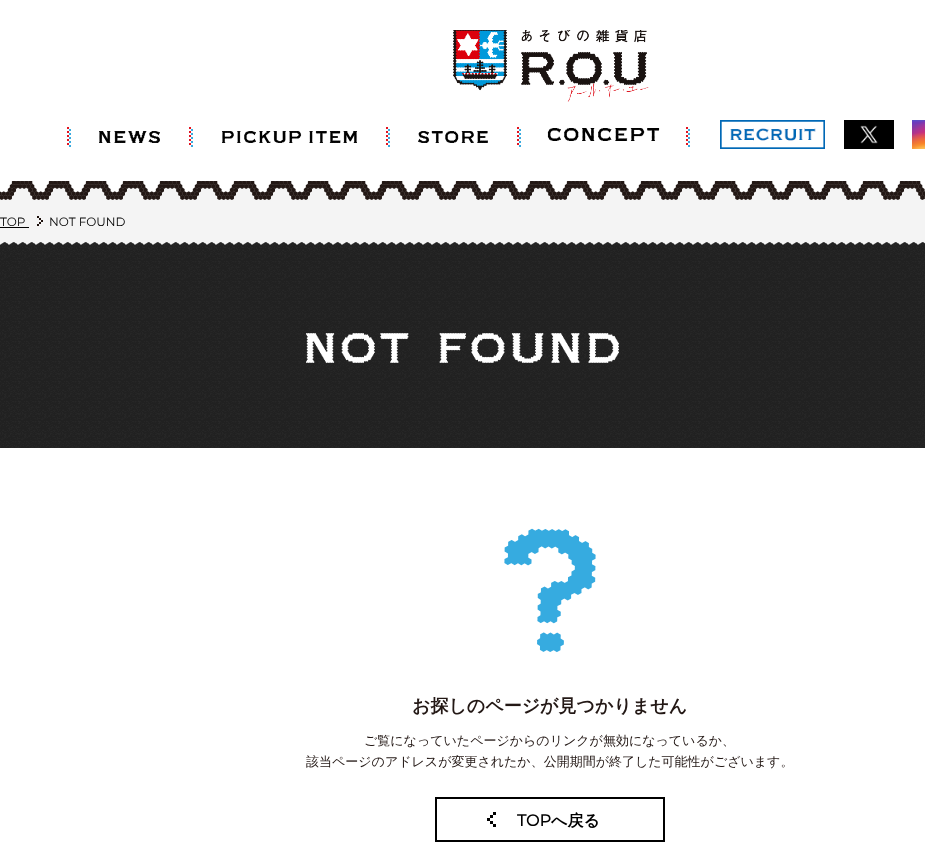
<svg xmlns="http://www.w3.org/2000/svg" width="925" height="867">
	<rect width="100%" height="100%" fill="#FFFFFF" />
	<image x="453" y="30" width="196" height="72" href="assets/img1.png" />
	<image x="67" y="127" width="4" height="20" href="assets/img2.png" />
	<image x="99" y="131" width="61" height="12" href="assets/img3.png" />
	<image x="189" y="127" width="4" height="20" href="assets/img2.png" />
	<image x="222" y="131" width="135" height="12" href="assets/img4.png" />
	<image x="386" y="127" width="4" height="20" href="assets/img2.png" />
	<image x="418" y="131" width="70" height="12" href="assets/img5.png" />
	<image x="517" y="127" width="4" height="20" href="assets/img2.png" />
	<image x="547" y="128" width="113" height="13" href="assets/img6.png" />
	<image x="686" y="127" width="4" height="20" href="assets/img2.png" />
	<image x="720" y="120" width="105" height="29" href="assets/img7.png" />
	<image x="844" y="120" width="50" height="29" href="assets/img8.png" />
	<image x="912" y="120" width="13" height="29" href="assets/img9.png" />
	<rect x="0" y="181" width="925" height="64" fill="#F4F4F4" />
	<image x="0" y="181" width="925" height="19" href="assets/img10.png" />
	<image x="0" y="242" width="925" height="6" href="assets/img11.png" />
	<text x="0" y="226" font-family="Montserrat" font-size="12" font-weight="100" fill="#000000">TOP</text>
	<rect x="0" y="227" width="29" height="1" fill="#000000" />
	<image x="37" y="216" width="6" height="10" href="assets/img12.png" />
	<text x="49" y="226" font-family="Montserrat" font-size="12" font-weight="100" fill="#000000">NOT FOUND</text>
	<image x="0" y="248" width="925" height="200" href="assets/img13.png" />
	<image x="306" y="333" width="313" height="30" href="assets/img14.png" />
	<image x="504" y="528" width="92" height="125" href="assets/img15.png" />
	<text x="412" y="712" font-family="WenQuanYi Zen Hei" font-size="18" font-weight="700" fill="#231815">お探しのページが見つかりません</text>
	<g font-family="WenQuanYi Zen Hei" font-size="13" font-weight="500" fill="#231815">
		<text x="364" y="745">ご覧になっていたページからのリンクが無効になっているか、</text>
		<text x="306" y="766">該当ページのアドレスが変更されたか、公開期間が終了した可能性がございます。</text>
	</g>
	<rect x="436" y="798" width="228" height="43" fill="none" stroke="#000000" stroke-width="2" />
	<image x="487" y="812" width="9" height="15" href="assets/img16.png" />
	<text x="517" y="826" font-family="Montserrat" font-size="16" font-weight="700" fill="#000000">TOP</text>
	<text x="551" y="826" font-family="WenQuanYi Zen Hei" font-size="16" font-weight="700" fill="#000000">へ戻る</text>
</svg>
